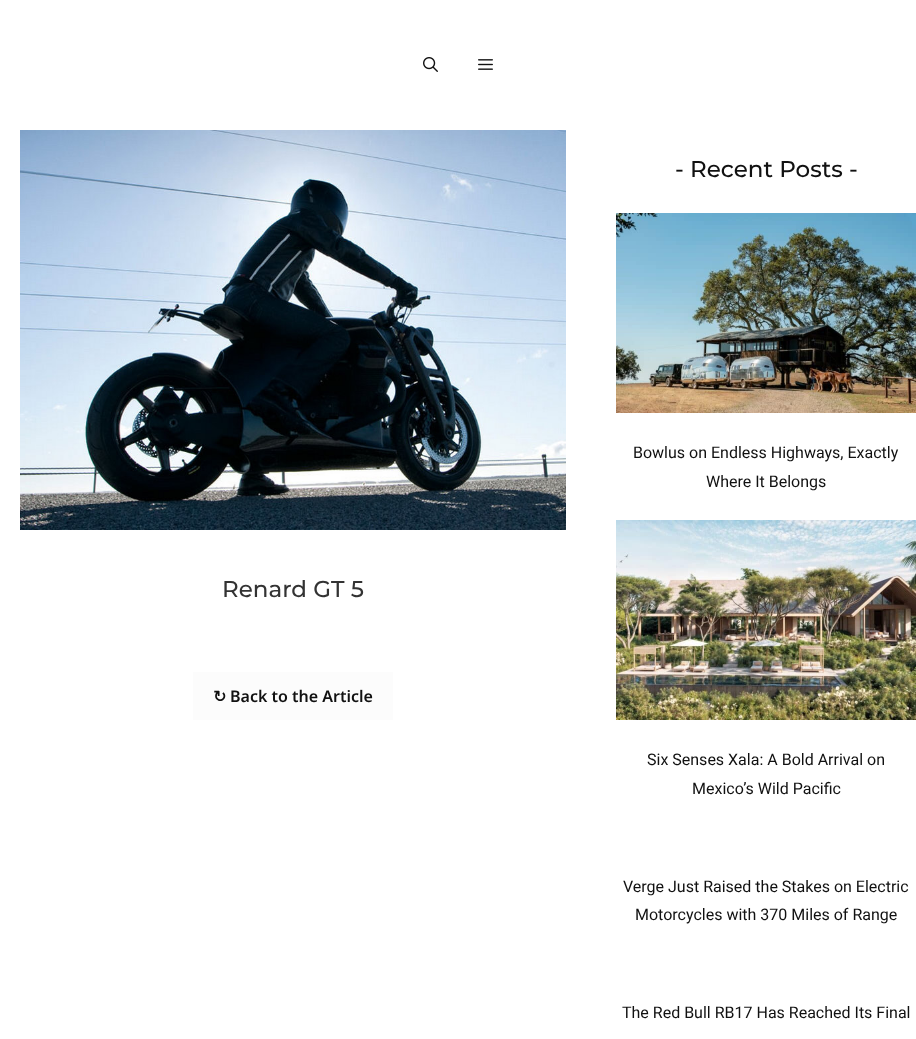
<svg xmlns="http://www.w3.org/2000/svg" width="916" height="1039">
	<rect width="100%" height="100%" fill="#FFFFFF" />
	<image x="423" y="57" width="15" height="15" href="assets/img1.png" />
	<image x="478" y="59" width="15" height="11" href="assets/img2.png" />
	<image x="20" y="130" width="546" height="400" href="assets/img3.png" />
	<text x="222" y="597" font-family="Montserrat" font-size="23" font-weight="500" fill="#333333">Renard GT 5</text>
	<rect x="193" y="672" width="200" height="48" fill="#FCFCFC" />
	<text x="213" y="702" font-family="DejaVu Sans" font-size="16" font-weight="700" fill="#111111">↻</text>
	<text x="230" y="702" font-family="Noto Sans" font-size="16" font-weight="600" fill="#111111">Back to the Article</text>
	<text x="675" y="177" font-family="Montserrat" font-size="23" font-weight="500" fill="#111111">- Recent Posts -</text>
	<image x="616" y="213" width="300" height="200" href="assets/img4.png" />
	<g font-family="Roboto" font-size="16" fill="#111111">
		<text x="633" y="458">Bowlus on Endless Highways, Exactly</text>
		<text x="706" y="487">Where It Belongs</text>
	</g>
	<image x="616" y="520" width="300" height="200" href="assets/img5.png" />
	<g font-family="Roboto" font-size="16" fill="#111111">
		<text x="647" y="765">Six Senses Xala: A Bold Arrival on</text>
		<text x="692" y="794">Mexico’s Wild Pacific</text>
		<text x="623" y="892">Verge Just Raised the Stakes on Electric</text>
		<text x="635" y="920">Motorcycles with 370 Miles of Range</text>
		<text x="622" y="1018">The Red Bull RB17 Has Reached Its Final</text>
	</g>
</svg>
